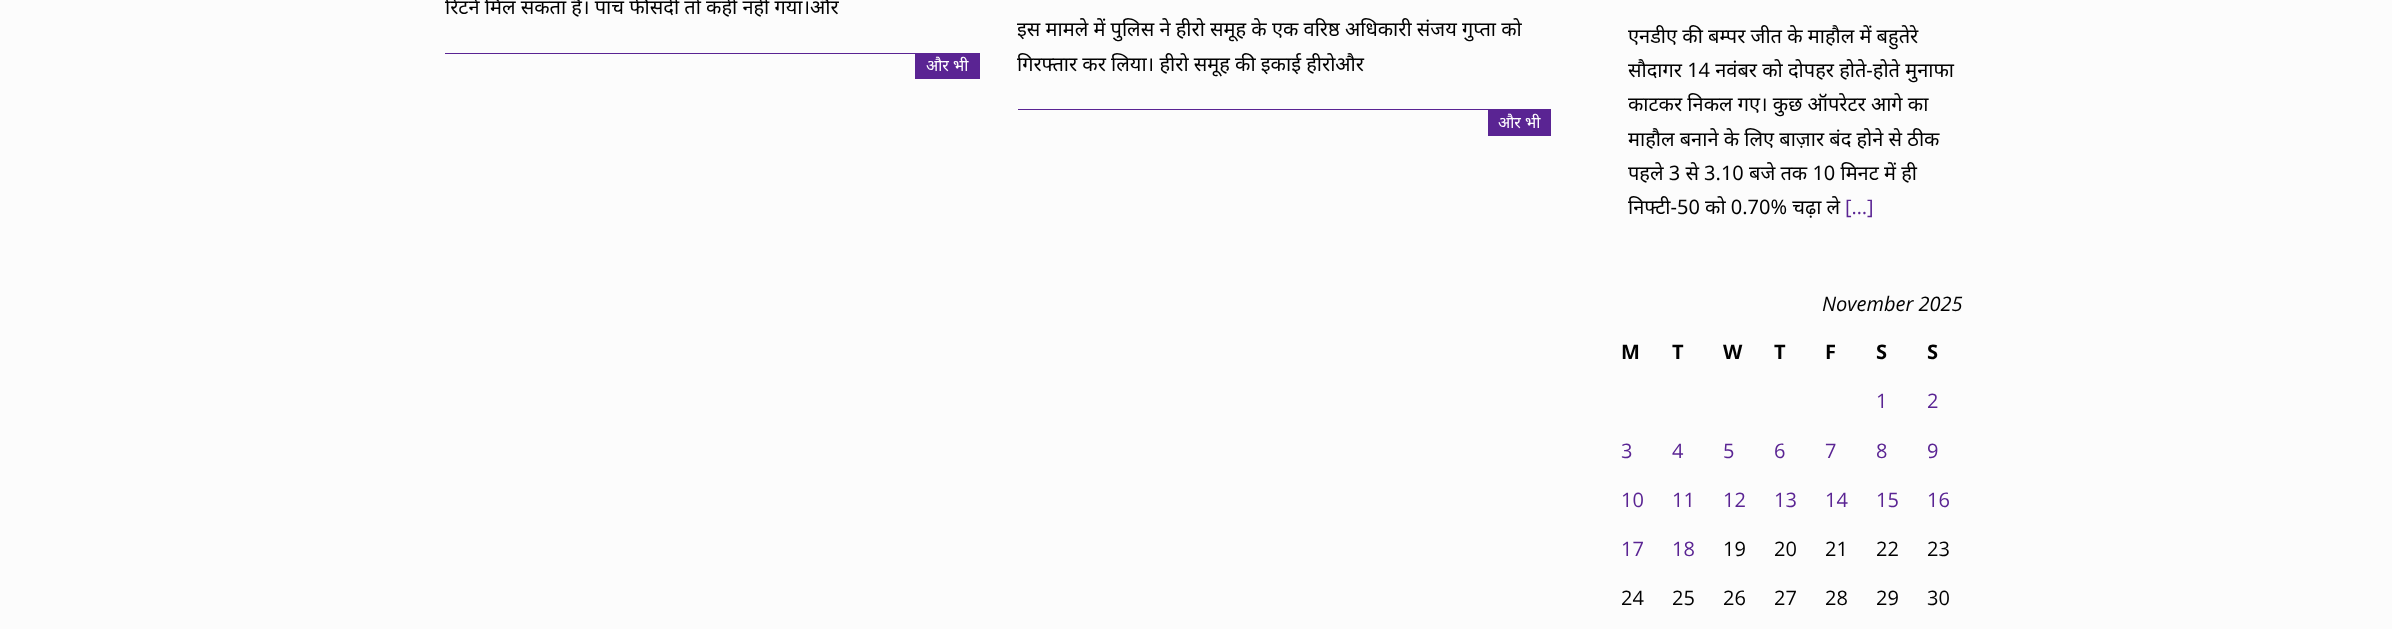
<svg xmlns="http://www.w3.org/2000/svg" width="2392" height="629">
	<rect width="100%" height="100%" fill="#FCFCFC" />
	<text x="445" y="14" font-family="Noto Sans" font-size="20" fill="#000000">रिटर्न मिल सकता है। पांच फीसदी तो कहीं नहीं गया।और</text>
	<rect x="445" y="53" width="535" height="1" fill="#5A2493" />
	<rect x="915" y="54" width="65" height="25" fill="#5A2493" />
	<text x="926" y="71" font-family="Noto Sans" font-size="16" fill="#FFFFFF">और भी</text>
	<g font-family="Noto Sans" font-size="20" fill="#000000">
		<text x="1017" y="36">इस मामले में पुलिस ने हीरो समूह के एक वरिष्ठ अधिकारी संजय गुप्ता को</text>
		<text x="1017" y="71">गिरफ्तार कर लिया। हीरो समूह की इकाई हीरोऔर</text>
	</g>
	<rect x="1018" y="109" width="533" height="1" fill="#5A2493" />
	<rect x="1488" y="110" width="63" height="26" fill="#5A2493" />
	<text x="1498" y="128" font-family="Noto Sans" font-size="16" fill="#FFFFFF">और भी</text>
	<g font-family="Noto Sans" font-size="20" fill="#000000">
		<text x="1628" y="43">एनडीए की बम्पर जीत के माहौल में बहुतेरे</text>
		<text x="1628" y="77">सौदागर 14 नवंबर को दोपहर होते-होते मुनाफा</text>
		<text x="1628" y="111">काटकर निकल गए। कुछ ऑपरेटर आगे का</text>
		<text x="1628" y="146">माहौल बनाने के लिए बाज़ार बंद होने से ठीक</text>
		<text x="1628" y="180">पहले 3 से 3.10 बजे तक 10 मिनट में ही</text>
		<text x="1628" y="214">निफ्टी-50 को 0.70% चढ़ा ले</text>
	</g>
	<text x="1845" y="214" font-family="Open Sans" font-size="20" fill="#5A2493">[…]</text>
	<text x="1822" y="311" font-family="Open Sans" font-size="20" font-style="italic" fill="#000000">November 2025</text>
	<g font-family="Open Sans" font-size="20" font-weight="700" letter-spacing="2" fill="#000000">
		<text x="1621" y="359">M</text>
		<text x="1672" y="359">T</text>
		<text x="1723" y="359">W</text>
		<text x="1774" y="359">T</text>
		<text x="1825" y="359">F</text>
		<text x="1876" y="359">S</text>
		<text x="1927" y="359">S</text>
	</g>
	<g font-family="Open Sans" font-size="20" fill="#5A2493">
		<text x="1876" y="408">1</text>
		<text x="1927" y="408">2</text>
		<text x="1621" y="458">3</text>
		<text x="1672" y="458">4</text>
		<text x="1723" y="458">5</text>
		<text x="1774" y="458">6</text>
		<text x="1825" y="458">7</text>
		<text x="1876" y="458">8</text>
		<text x="1927" y="458">9</text>
		<text x="1621" y="507">10</text>
		<text x="1672" y="507">11</text>
		<text x="1723" y="507">12</text>
		<text x="1774" y="507">13</text>
		<text x="1825" y="507">14</text>
		<text x="1876" y="507">15</text>
		<text x="1927" y="507">16</text>
		<text x="1621" y="556">17</text>
		<text x="1672" y="556">18</text>
	</g>
	<g font-family="Open Sans" font-size="20" fill="#000000">
		<text x="1723" y="556">19</text>
		<text x="1774" y="556">20</text>
		<text x="1825" y="556">21</text>
		<text x="1876" y="556">22</text>
		<text x="1927" y="556">23</text>
		<text x="1621" y="605">24</text>
		<text x="1672" y="605">25</text>
		<text x="1723" y="605">26</text>
		<text x="1774" y="605">27</text>
		<text x="1825" y="605">28</text>
		<text x="1876" y="605">29</text>
		<text x="1927" y="605">30</text>
	</g>
</svg>
